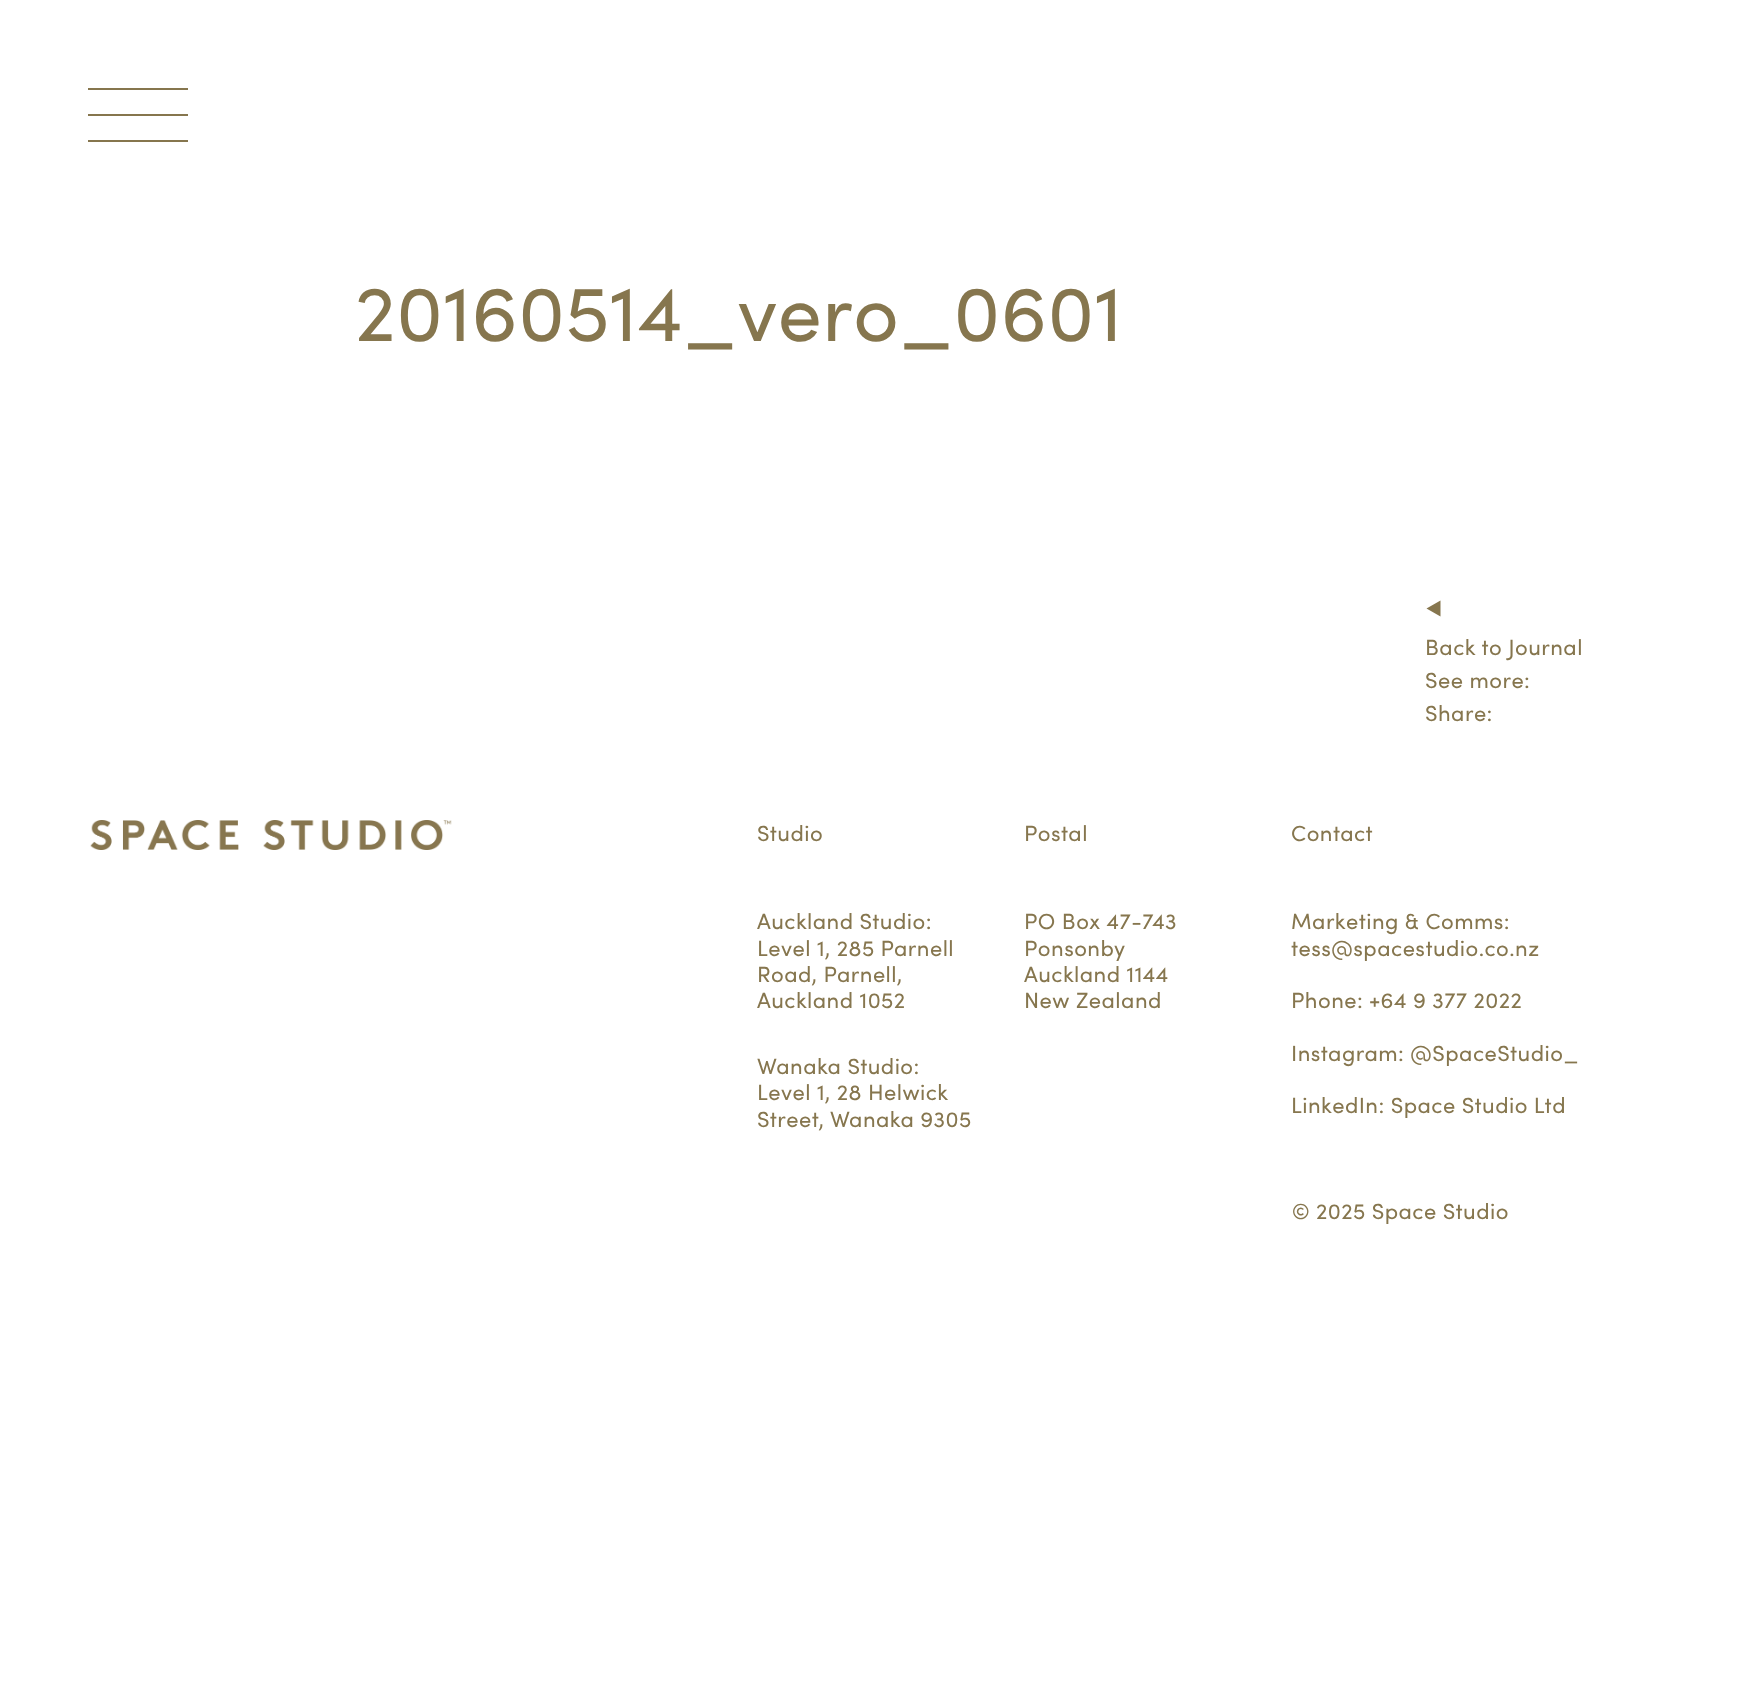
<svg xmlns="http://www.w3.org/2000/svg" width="1756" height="1687">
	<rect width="100%" height="100%" fill="#FFFFFF" />
	<rect x="88" y="88" width="100" height="2" fill="#86764E" />
	<rect x="88" y="114" width="100" height="2" fill="#86764E" />
	<rect x="88" y="140" width="100" height="2" fill="#86764E" />
	<text x="355" y="341" font-family="sofia" font-size="79" letter-spacing="0.45" fill="#86764E">20160514_vero_0601</text>
	<path d="M1440.5 600.5V616.5L1426.5 608.5Z" fill="#86764E" />
	<g font-family="sofia" font-size="22" letter-spacing="0.45" fill="#86764E">
		<text x="1425" y="655">Back to Journal</text>
		<text x="1425" y="688">See more:</text>
		<text x="1425" y="721">Share:</text>
	</g>
	<image x="90" y="820" width="362" height="30" href="assets/img1.png" />
	<g font-family="sofia" font-size="22" letter-spacing="0.45" fill="#86764E">
		<text x="757" y="841">Studio</text>
		<text x="757" y="929">Auckland Studio:</text>
		<text x="757" y="956">Level 1, 285 Parnell</text>
		<text x="757" y="982">Road, Parnell,</text>
		<text x="757" y="1008">Auckland 1052</text>
		<text x="757" y="1074">Wanaka Studio:</text>
		<text x="757" y="1100">Level 1, 28 Helwick</text>
		<text x="757" y="1127">Street, Wanaka 9305</text>
		<text x="1024" y="841">Postal</text>
		<text x="1024" y="929">PO Box 47-743</text>
		<text x="1024" y="956">Ponsonby</text>
		<text x="1024" y="982">Auckland 1144</text>
		<text x="1024" y="1008">New Zealand</text>
		<text x="1291" y="841">Contact</text>
		<text x="1291" y="929">Marketing &amp; Comms:</text>
		<text x="1291" y="956">tess@spacestudio.co.nz</text>
		<text x="1291" y="1008">Phone: +64 9 377 2022</text>
		<text x="1291" y="1061">Instagram: @SpaceStudio_</text>
		<text x="1291" y="1113">LinkedIn: Space Studio Ltd</text>
		<text x="1292" y="1219">© 2025 Space Studio</text>
	</g>
</svg>
